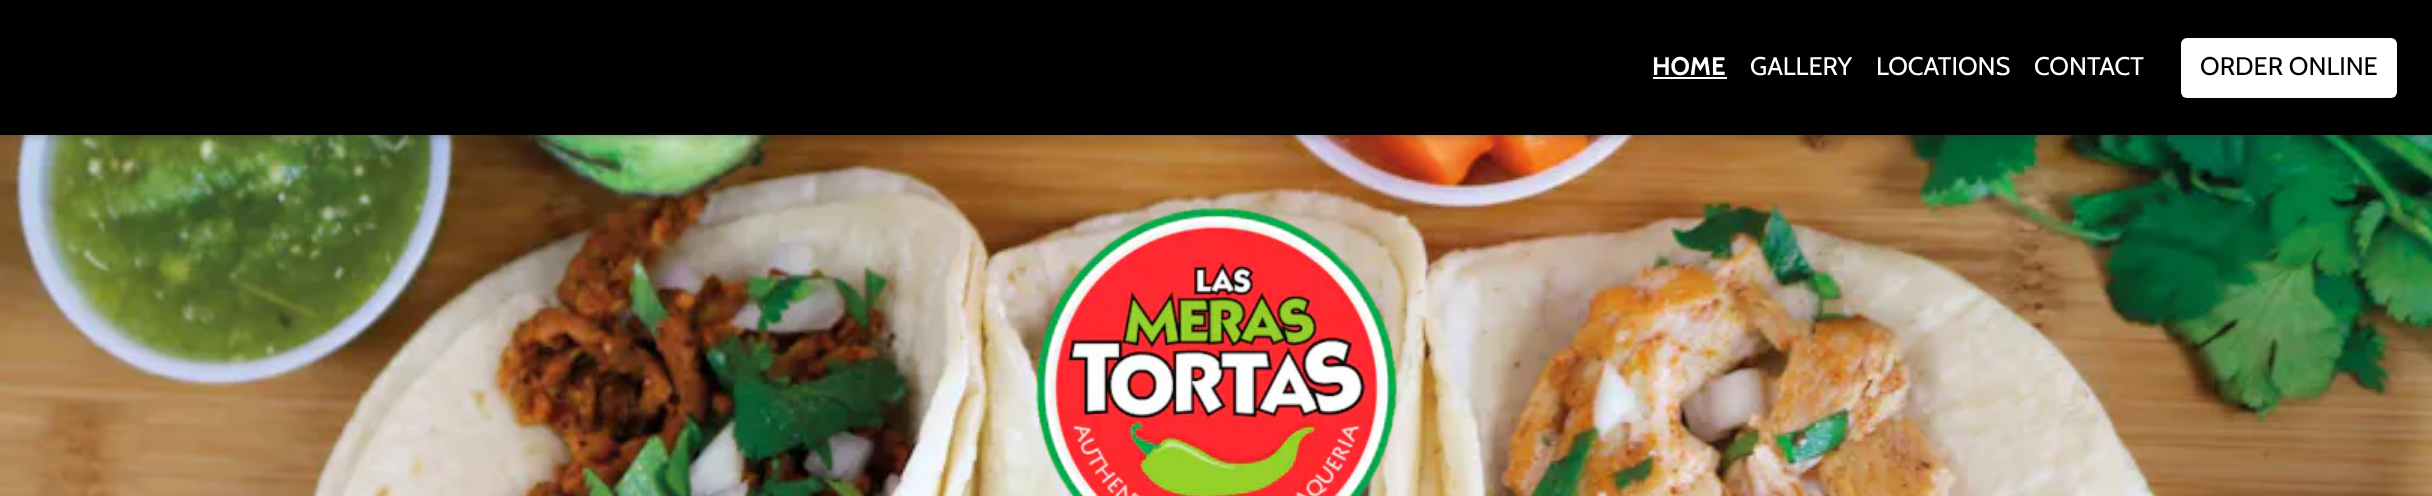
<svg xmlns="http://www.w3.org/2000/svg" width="2432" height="496">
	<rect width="100%" height="100%" fill="#FFFFFF" />
	<image x="0" y="135" width="2432" height="361" href="assets/img1.png" />
	<rect x="0" y="2" width="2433" height="135" fill="#202124" fill-opacity="0.28" filter="blur(4.5px)" />
	<rect x="0" y="0" width="2432" height="135" fill="#000000" />
	<text x="1652" y="75" font-family="Cabin" font-size="25.5" font-weight="700" fill="#FFFFFF">HOME</text>
	<rect x="1653" y="77" width="74" height="2" fill="#FFFFFF" />
	<g font-family="Cabin" font-size="25.5" fill="#FFFFFF">
		<text x="1750" y="75">GALLERY</text>
		<text x="1876" y="75">LOCATIONS</text>
		<text x="2034" y="75">CONTACT</text>
	</g>
	<rect x="2181" y="38" width="216" height="60" rx="6" fill="#FFFFFF" />
	<text x="2200" y="75" font-family="Cabin" font-size="25.5" fill="#000000">ORDER ONLINE</text>
	<image x="1036" y="207" width="362" height="289" href="assets/img2.png" />
</svg>
